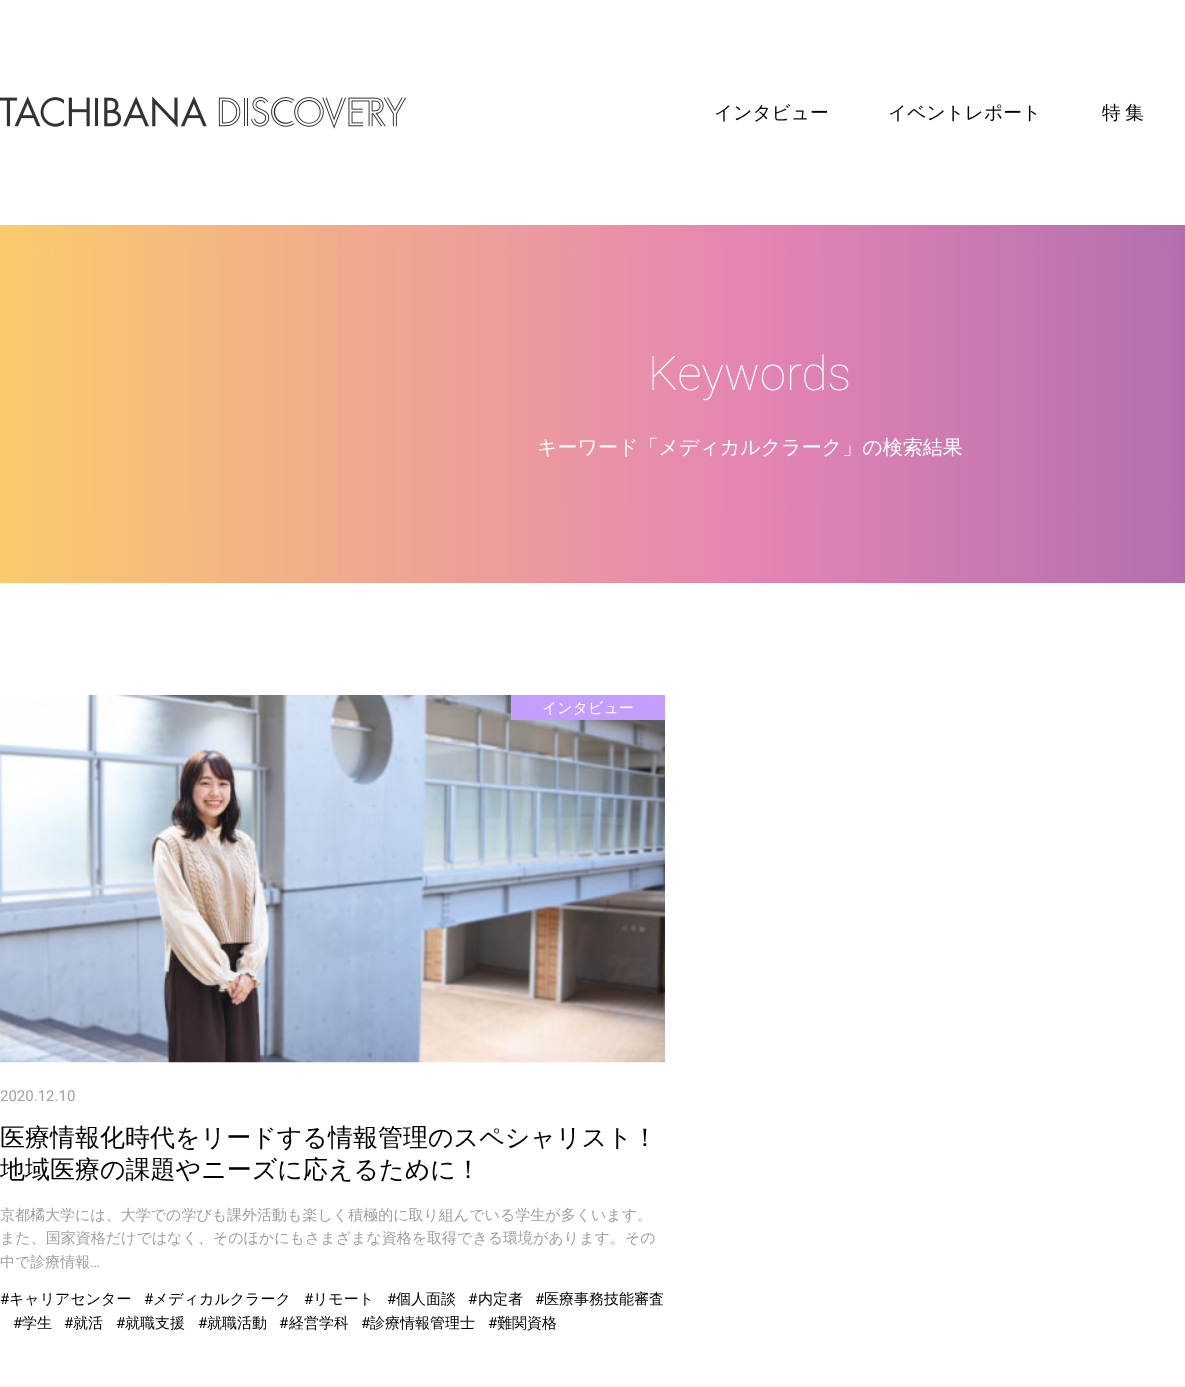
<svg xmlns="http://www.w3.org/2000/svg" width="1185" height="1387">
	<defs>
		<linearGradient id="g1" gradientUnits="userSpaceOnUse" x1="0" y1="404" x2="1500" y2="404"><stop offset="0" stop-color="#FACB6C" /><stop offset="0.5" stop-color="#E585B3" /><stop offset="1" stop-color="#8D5FAB" /></linearGradient>
	</defs>
	<rect width="100%" height="100%" fill="#FFFFFF" />
	<image x="0" y="96" width="406" height="33" href="assets/img1.png" />
	<g font-family="WenQuanYi Zen Hei" font-size="18.75" font-weight="500" fill="#000000">
		<text x="714" y="119">インタビュー</text>
		<text x="888" y="119">イベントレポート</text>
		<text x="1102" y="119" word-spacing="-1">特 集</text>
	</g>
	<rect x="0" y="225" width="1185" height="358" fill="url(#g1)" />
	<text x="648" y="390" font-family="Roboto" font-size="47.5" font-weight="100" fill="#FFFFFF">Keywords</text>
	<text x="537" y="454" font-family="WenQuanYi Zen Hei" font-size="20" font-weight="500" fill="#FFFFFF">キーワード「メディカルクラーク」の検索結果</text>
	<image x="0" y="695" width="665" height="368" href="assets/img2.png" />
	<rect x="511" y="695" width="154" height="25" fill="#C49DFF" />
	<text x="542" y="713" font-family="WenQuanYi Zen Hei" font-size="15" font-weight="500" fill="#FFFFFF">インタビュー</text>
	<text x="0" y="1101" font-family="Roboto" font-size="15" fill="#A0A0A0">2020.12.10</text>
	<g font-family="WenQuanYi Zen Hei" font-size="25" font-weight="500" fill="#000000">
		<text x="0" y="1146">医療情報化時代をリードする情報管理のスペシャリスト！</text>
		<text x="0" y="1178">地域医療の課題やニーズに応えるために！</text>
	</g>
	<g font-family="WenQuanYi Zen Hei" font-size="15" font-weight="500" fill="#A0A0A0">
		<text x="0" y="1220">京都橘大学には、大学での学びも課外活動も楽しく積極的に取り組んでいる学生が多くいます。</text>
		<text x="0" y="1243">また、国家資格だけではなく、そのほかにもさまざまな資格を取得できる環境があります。その</text>
		<text x="0" y="1267">中で診療情報</text>
	</g>
	<text x="90" y="1267" font-family="Roboto" font-size="15" fill="#A0A0A0">…</text>
	<text x="0" y="1304" font-family="Roboto" font-size="15" fill="#000000">#</text>
	<text x="9" y="1304" font-family="WenQuanYi Zen Hei" font-size="15" font-weight="500" fill="#000000">キャリアセンター</text>
	<text x="144" y="1304" font-family="Roboto" font-size="15" fill="#000000">#</text>
	<text x="153" y="1304" font-family="WenQuanYi Zen Hei" font-size="15" font-weight="500" fill="#000000">メディカルクラーク</text>
	<text x="304" y="1304" font-family="Roboto" font-size="15" fill="#000000">#</text>
	<text x="313" y="1304" font-family="WenQuanYi Zen Hei" font-size="15" font-weight="500" fill="#000000">リモート</text>
	<text x="387" y="1304" font-family="Roboto" font-size="15" fill="#000000">#</text>
	<text x="396" y="1304" font-family="WenQuanYi Zen Hei" font-size="15" font-weight="500" fill="#000000">個人面談</text>
	<text x="468" y="1304" font-family="Roboto" font-size="15" fill="#000000">#</text>
	<text x="478" y="1304" font-family="WenQuanYi Zen Hei" font-size="15" font-weight="500" fill="#000000">内定者</text>
	<text x="535" y="1304" font-family="Roboto" font-size="15" fill="#000000">#</text>
	<text x="544" y="1304" font-family="WenQuanYi Zen Hei" font-size="15" font-weight="500" fill="#000000">医療事務技能審査</text>
	<text x="13" y="1328" font-family="Roboto" font-size="15" fill="#000000">#</text>
	<text x="22" y="1328" font-family="WenQuanYi Zen Hei" font-size="15" font-weight="500" fill="#000000">学生</text>
	<text x="64" y="1328" font-family="Roboto" font-size="15" fill="#000000">#</text>
	<text x="73" y="1328" font-family="WenQuanYi Zen Hei" font-size="15" font-weight="500" fill="#000000">就活</text>
	<text x="116" y="1328" font-family="Roboto" font-size="15" fill="#000000">#</text>
	<text x="125" y="1328" font-family="WenQuanYi Zen Hei" font-size="15" font-weight="500" fill="#000000">就職支援</text>
	<text x="198" y="1328" font-family="Roboto" font-size="15" fill="#000000">#</text>
	<text x="207" y="1328" font-family="WenQuanYi Zen Hei" font-size="15" font-weight="500" fill="#000000">就職活動</text>
	<text x="279" y="1328" font-family="Roboto" font-size="15" fill="#000000">#</text>
	<text x="289" y="1328" font-family="WenQuanYi Zen Hei" font-size="15" font-weight="500" fill="#000000">経営学科</text>
	<text x="361" y="1328" font-family="Roboto" font-size="15" fill="#000000">#</text>
	<text x="370" y="1328" font-family="WenQuanYi Zen Hei" font-size="15" font-weight="500" fill="#000000">診療情報管理士</text>
	<text x="488" y="1328" font-family="Roboto" font-size="15" fill="#000000">#</text>
	<text x="497" y="1328" font-family="WenQuanYi Zen Hei" font-size="15" font-weight="500" fill="#000000">難関資格</text>
</svg>
